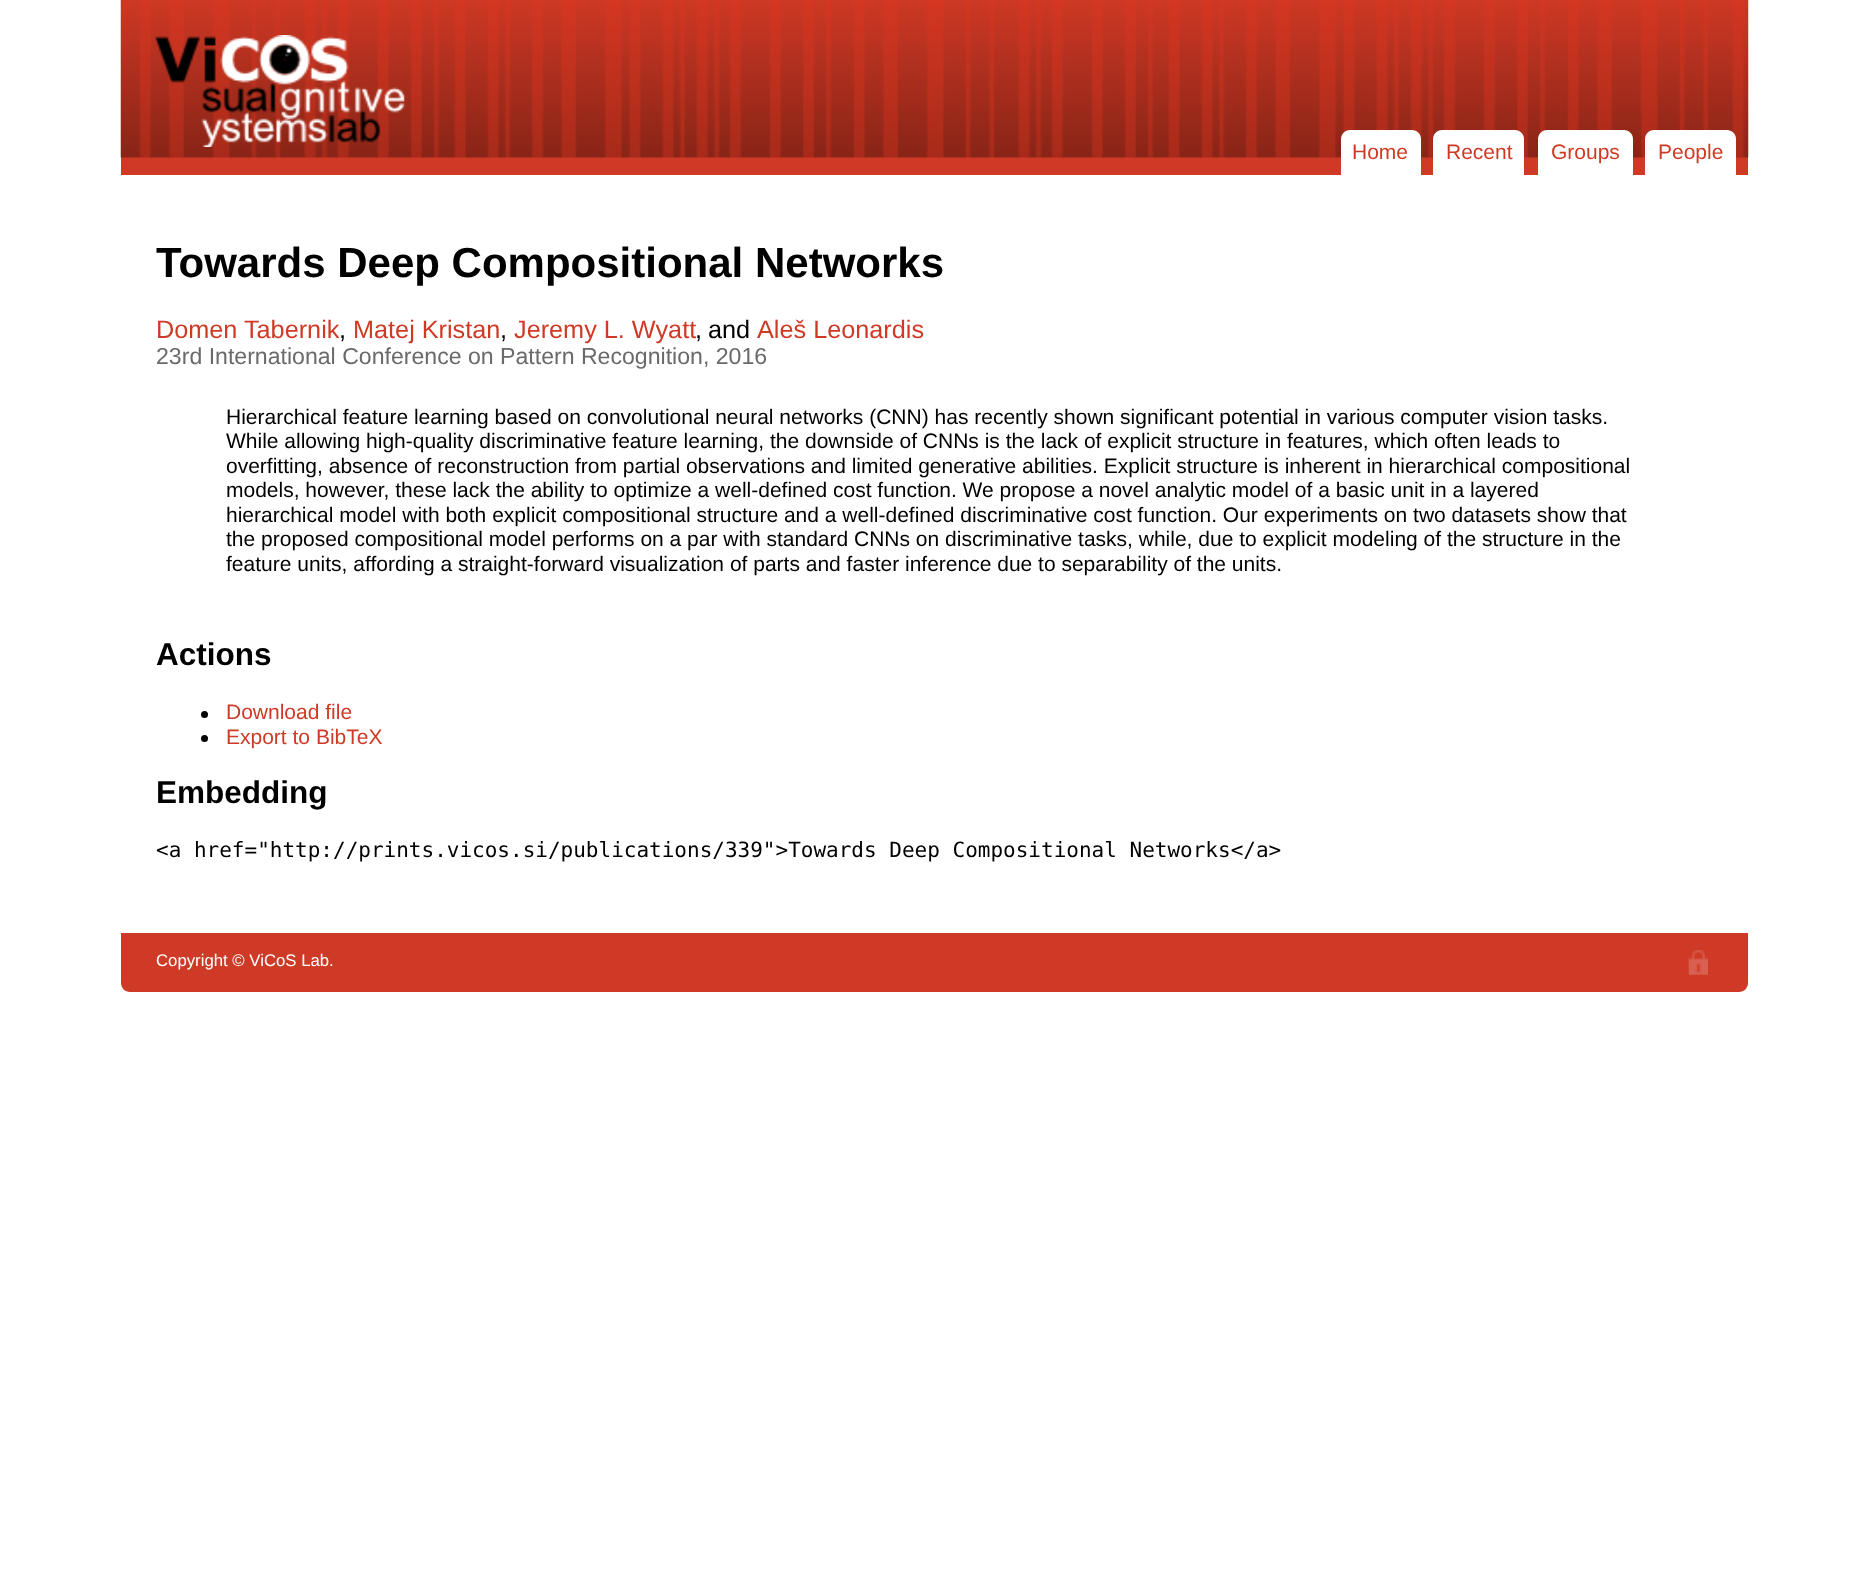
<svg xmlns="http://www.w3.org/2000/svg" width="1869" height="1586">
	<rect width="100%" height="100%" fill="#FFFFFF" />
	<rect x="121" y="157" width="1627" height="18" fill="#CF3A26" />
	<image x="120" y="0" width="1629" height="158" href="assets/img1.png" />
	<image x="155" y="35" width="250" height="112" href="assets/img2.png" />
	<path d="M1350 130H1412C1417 130 1421 134 1421 139V175H1341V139C1341 134 1345 130 1350 130Z" fill="#FFFFFF" />
	<text x="1352" y="159" font-family="Liberation Sans" font-size="21" fill="#CF3A26">Home</text>
	<path d="M1442 130H1515C1520 130 1524 134 1524 139V175H1433V139C1433 134 1437 130 1442 130Z" fill="#FFFFFF" />
	<text x="1446" y="159" font-family="Liberation Sans" font-size="21" fill="#CF3A26">Recent</text>
	<path d="M1547 130H1624C1629 130 1633 134 1633 139V175H1538V139C1538 134 1542 130 1547 130Z" fill="#FFFFFF" />
	<text x="1551" y="159" font-family="Liberation Sans" font-size="21" fill="#CF3A26">Groups</text>
	<path d="M1654 130H1727C1732 130 1736 134 1736 139V175H1645V139C1645 134 1649 130 1654 130Z" fill="#FFFFFF" />
	<text x="1658" y="159" font-family="Liberation Sans" font-size="21" fill="#CF3A26">People</text>
	<text x="156" y="277" font-family="Liberation Sans" font-size="42" font-weight="700" fill="#000000">Towards Deep Compositional Networks</text>
	<text x="156" y="338" font-family="Liberation Sans" font-size="25.25" fill="#CF3A26">Domen Tabernik</text>
	<text x="339" y="338" font-family="Liberation Sans" font-size="25.25" fill="#000000">,</text>
	<text x="353" y="338" font-family="Liberation Sans" font-size="25.25" fill="#CF3A26">Matej Kristan</text>
	<text x="500" y="338" font-family="Liberation Sans" font-size="25.25" fill="#000000">,</text>
	<text x="514" y="338" font-family="Liberation Sans" font-size="25.25" fill="#CF3A26">Jeremy L. Wyatt</text>
	<text x="695" y="338" word-spacing="-1" font-family="Liberation Sans" font-size="25.25" fill="#000000">, and</text>
	<text x="757" y="338" font-family="Liberation Sans" font-size="25.25" fill="#CF3A26">Aleš Leonardis</text>
	<text x="156" y="364" font-family="Liberation Sans" font-size="23.1" fill="#6A6A6A">23rd International Conference on Pattern Recognition, 2016</text>
	<g font-family="Liberation Sans" font-size="21" fill="#000000">
		<text x="226" y="424">Hierarchical feature learning based on convolutional neural networks (CNN) has recently shown significant potential in various computer vision tasks.</text>
		<text x="226" y="448">While allowing high-quality discriminative feature learning, the downside of CNNs is the lack of explicit structure in features, which often leads to</text>
		<text x="226" y="473">overfitting, absence of reconstruction from partial observations and limited generative abilities. Explicit structure is inherent in hierarchical compositional</text>
		<text x="226" y="497">models, however, these lack the ability to optimize a well-defined cost function. We propose a novel analytic model of a basic unit in a layered</text>
		<text x="226" y="522">hierarchical model with both explicit compositional structure and a well-defined discriminative cost function. Our experiments on two datasets show that</text>
		<text x="226" y="546">the proposed compositional model performs on a par with standard CNNs on discriminative tasks, while, due to explicit modeling of the structure in the</text>
		<text x="226" y="571">feature units, affording a straight-forward visualization of parts and faster inference due to separability of the units.</text>
	</g>
	<text x="156" y="665" font-family="Liberation Sans" font-size="31.5" font-weight="700" fill="#000000">Actions</text>
	<circle cx="204.5" cy="714.5" r="3.5" fill="#000000" />
	<text x="226" y="719" font-family="Liberation Sans" font-size="21" fill="#CF3A26">Download file</text>
	<circle cx="204.5" cy="738.5" r="3.5" fill="#000000" />
	<text x="226" y="744" font-family="Liberation Sans" font-size="21" fill="#CF3A26">Export to BibTeX</text>
	<text x="156" y="803" font-family="Liberation Sans" font-size="31.5" font-weight="700" fill="#000000">Embedding</text>
	<text x="156" y="857" font-family="DejaVu Sans Mono" font-size="21" fill="#000000">&lt;a href="http://prints.vicos.si/publications/339"&gt;Towards Deep Compositional Networks&lt;/a&gt;</text>
	<path d="M121 933H1748V983C1748 988 1744 992 1739 992H130C125 992 121 988 121 983Z" fill="#CF3A26" />
	<text x="156" y="966" font-family="Liberation Sans" font-size="16.75" fill="#FFFFFF">Copyright © ViCoS Lab.</text>
	<image x="1688" y="950" width="20" height="25" href="assets/img3.png" />
</svg>
